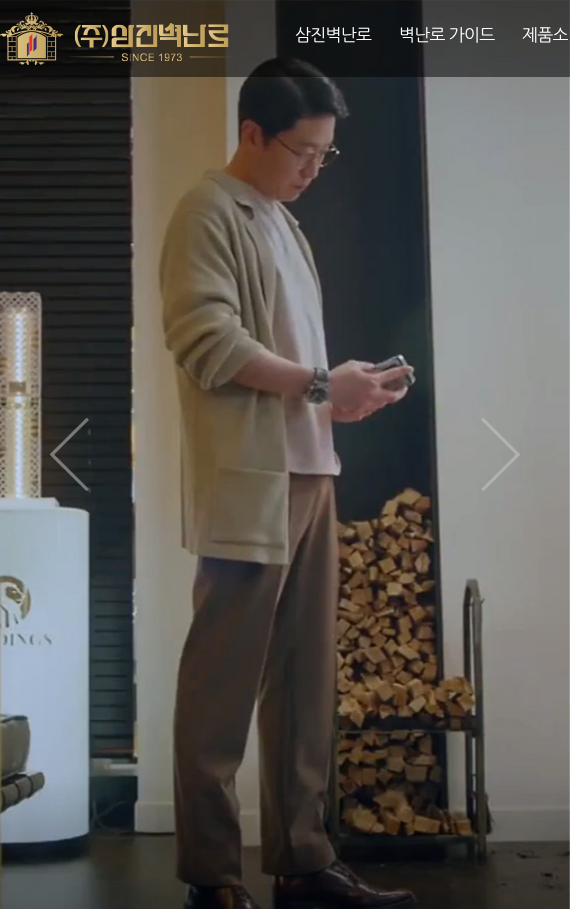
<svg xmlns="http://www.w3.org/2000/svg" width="570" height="909">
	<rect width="100%" height="100%" fill="#FFFFFF" />
	<image x="0" y="0" width="570" height="909" href="assets/img1.png" />
	<image x="50" y="418" width="39" height="73" href="assets/img2.png" />
	<image x="481" y="418" width="39" height="73" href="assets/img3.png" />
	<rect x="0" y="0" width="570" height="77" fill="#000000" fill-opacity="0.5" />
	<image x="0" y="12" width="233" height="53" href="assets/img4.png" />
	<g font-family="NanumGothic" font-size="17" letter-spacing="-0.75" fill="#FFFFFF">
		<text x="295" y="41">삼진벽난로</text>
		<text x="399" y="41">벽난로 가이드</text>
		<text x="522" y="41">제품소</text>
	</g>
</svg>
